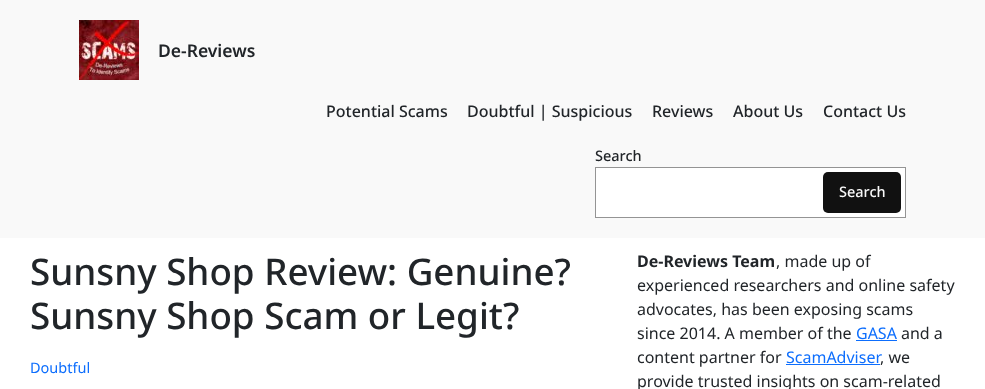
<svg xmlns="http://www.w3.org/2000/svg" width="985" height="389">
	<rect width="100%" height="100%" fill="#FFFFFF" />
	<rect x="0" y="0" width="985" height="238" fill="#F9F9F9" />
	<image x="79" y="20" width="60" height="60" href="assets/img1.png" />
	<text x="158" y="57" font-family="Noto Sans" font-size="17.5" font-weight="600" fill="#212529">De-Reviews</text>
	<g font-family="Noto Sans" font-size="16" font-weight="500" fill="#212529">
		<text x="326" y="117">Potential Scams</text>
		<text x="467" y="117">Doubtful | Suspicious</text>
		<text x="652" y="117">Reviews</text>
		<text x="733" y="117">About Us</text>
		<text x="823" y="117">Contact Us</text>
	</g>
	<text x="595" y="161" font-family="Noto Sans" font-size="14.5" font-weight="500" fill="#212529">Search</text>
	<rect x="595.5" y="167.5" width="310" height="50" fill="#FFFFFF" stroke="#949494" />
	<rect x="823" y="172" width="78" height="41" rx="5" fill="#111111" />
	<text x="839" y="197" font-family="Noto Sans" font-size="14.5" font-weight="500" fill="#F9F9F9">Search</text>
	<g font-family="Noto Sans" font-size="36.75" font-weight="500" fill="#212529">
		<text x="30" y="285">Sunsny Shop Review: Genuine?</text>
		<text x="30" y="329">Sunsny Shop Scam or Legit?</text>
	</g>
	<text x="30" y="373" font-family="Noto Sans" font-size="14.5" fill="#0D6EFD">Doubtful</text>
	<text x="637" y="267" font-family="Noto Sans" font-size="16" font-weight="700" fill="#212529">De-Reviews Team</text>
	<g font-family="Noto Sans" font-size="16" fill="#212529">
		<text x="776" y="267">, made up of</text>
		<text x="637" y="291">experienced researchers and online safety</text>
		<text x="637" y="315">advocates, has been exposing scams</text>
		<text x="637" y="339">since 2014. A member of the</text>
	</g>
	<text x="856" y="339" font-family="Noto Sans" font-size="16" fill="#0D6EFD">GASA</text>
	<rect x="856" y="340" width="41" height="1" fill="#0D6EFD" />
	<g font-family="Noto Sans" font-size="16" fill="#212529">
		<text x="901" y="339">and a</text>
		<text x="637" y="363">content partner for</text>
	</g>
	<text x="786" y="363" font-family="Noto Sans" font-size="16" fill="#0D6EFD">ScamAdviser</text>
	<rect x="786" y="364" width="94" height="1" fill="#0D6EFD" />
	<g font-family="Noto Sans" font-size="16" fill="#212529">
		<text x="880" y="363">, we</text>
		<text x="637" y="387">provide trusted insights on scam-related</text>
	</g>
</svg>
